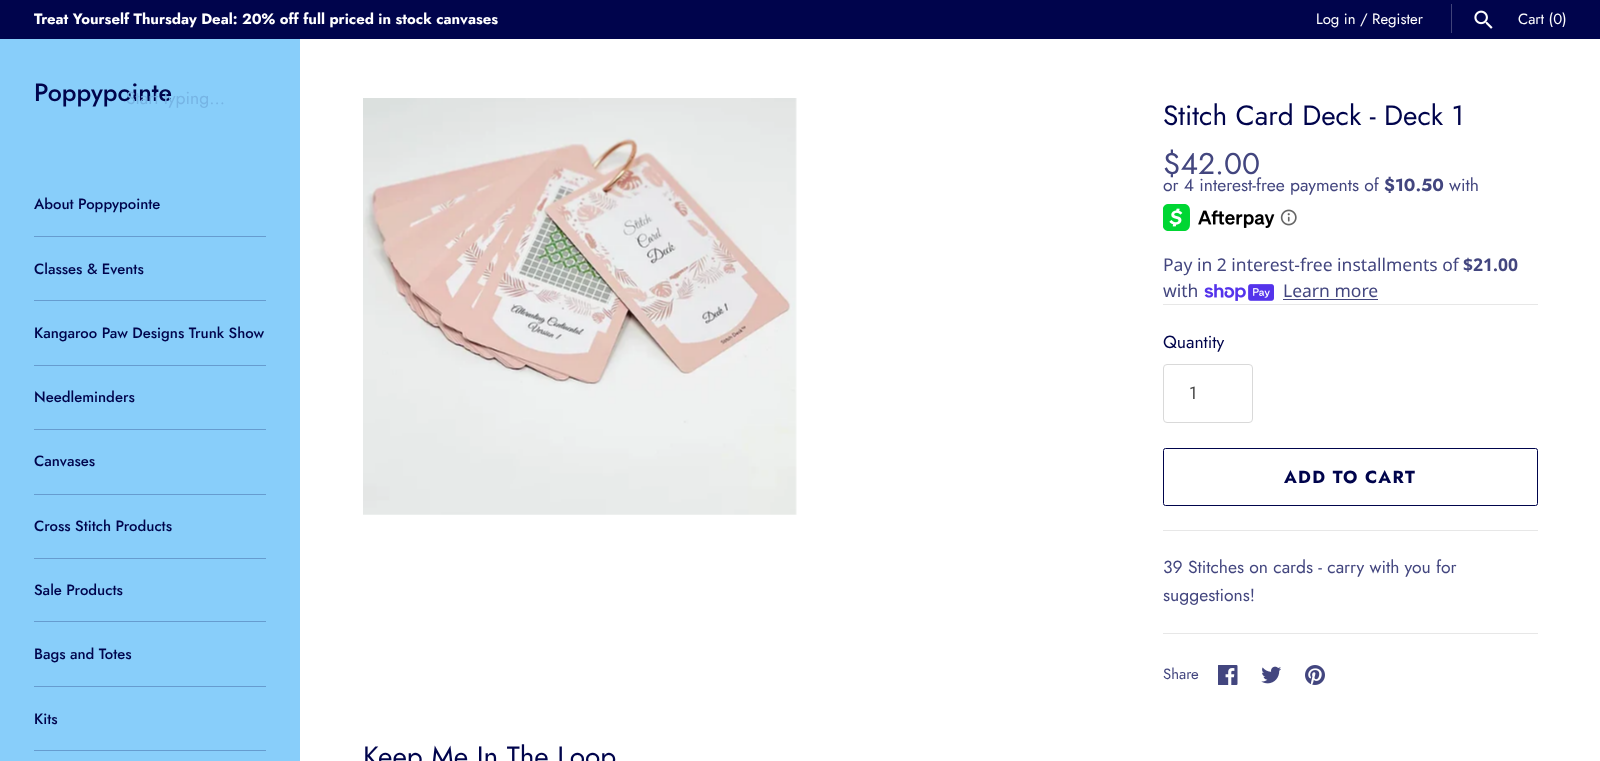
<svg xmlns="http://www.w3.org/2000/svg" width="1600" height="761">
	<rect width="100%" height="100%" fill="#FFFFFF" />
	<rect x="0" y="0" width="1600" height="39" fill="#00044C" />
	<text x="34" y="24" font-family="Jost" font-size="14.9" font-weight="700" fill="#FFFFFF">Treat Yourself Thursday Deal: 20% off full priced in stock canvases</text>
	<text x="1316" y="24" font-family="Jost" font-size="14.9" fill="#FFFFFF">Log in / Register</text>
	<rect x="1451" y="4" width="1" height="29" fill="#404379" />
	<image x="1474" y="10" width="19" height="19" href="assets/img1.png" />
	<text x="1518" y="24" font-family="Jost" font-size="14.9" fill="#FFFFFF">Cart (0)</text>
	<rect x="0" y="39" width="300" height="722" fill="#88CEFA" />
	<text x="34" y="101" font-family="Jost" font-size="25" font-weight="500" fill="#00044C">Poppypointe</text>
	<text x="126" y="104" font-family="Jost" font-size="17.5" fill="#76B4E4">Start typing...</text>
	<rect x="34" y="236" width="232" height="1" fill="#669CCF" />
	<text x="34" y="209" font-family="Jost" font-size="14.9" font-weight="500" fill="#00044C">About Poppypointe</text>
	<rect x="34" y="300" width="232" height="1" fill="#669CCF" />
	<text x="34" y="274" font-family="Jost" font-size="14.9" font-weight="500" fill="#00044C">Classes &amp; Events</text>
	<rect x="34" y="365" width="232" height="1" fill="#669CCF" />
	<text x="34" y="338" font-family="Jost" font-size="14.9" font-weight="500" fill="#00044C">Kangaroo Paw Designs Trunk Show</text>
	<rect x="34" y="429" width="232" height="1" fill="#669CCF" />
	<text x="34" y="402" font-family="Jost" font-size="14.9" font-weight="500" fill="#00044C">Needleminders</text>
	<rect x="34" y="494" width="232" height="1" fill="#669CCF" />
	<text x="34" y="466" font-family="Jost" font-size="14.9" font-weight="500" fill="#00044C">Canvases</text>
	<rect x="34" y="558" width="232" height="1" fill="#669CCF" />
	<text x="34" y="531" font-family="Jost" font-size="14.9" font-weight="500" fill="#00044C">Cross Stitch Products</text>
	<rect x="34" y="621" width="232" height="1" fill="#669CCF" />
	<text x="34" y="595" font-family="Jost" font-size="14.9" font-weight="500" fill="#00044C">Sale Products</text>
	<rect x="34" y="686" width="232" height="1" fill="#669CCF" />
	<text x="34" y="659" font-family="Jost" font-size="14.9" font-weight="500" fill="#00044C">Bags and Totes</text>
	<rect x="34" y="750" width="232" height="1" fill="#669CCF" />
	<text x="34" y="724" font-family="Jost" font-size="14.9" font-weight="500" fill="#00044C">Kits</text>
	<image x="363" y="98" width="434" height="417" href="assets/img2.png" />
	<text x="1163" y="125" font-family="Jost" font-size="28" fill="#00044C">Stitch Card Deck - Deck 1</text>
	<text x="1163" y="174" font-family="Jost" font-size="30" fill="#43467F">$42.00</text>
	<text x="1163" y="191" font-family="Jost" font-size="17.5" fill="#43467F">or 4 interest-free payments of</text>
	<text x="1384" y="191" font-family="Jost" font-size="17.5" font-weight="700" fill="#43467F">$10.50</text>
	<text x="1449" y="191" font-family="Jost" font-size="17.5" fill="#43467F">with</text>
	<image x="1163" y="204" width="112" height="27" href="assets/img3.png" />
	<image x="1280" y="209" width="17" height="17" href="assets/img4.png" />
	<text x="1163" y="271" font-family="Noto Sans" font-size="17.5" fill="#43467F">Pay in 2 interest-free installments of</text>
	<text x="1463" y="271" font-family="Noto Sans" font-size="17.5" font-weight="700" fill="#43467F">$21.00</text>
	<text x="1163" y="297" font-family="Noto Sans" font-size="17.5" fill="#43467F">with</text>
	<image x="1204" y="284" width="70" height="17" href="assets/img5.png" />
	<text x="1283" y="297" font-family="Noto Sans" font-size="17.5" fill="#43467F">Learn more</text>
	<rect x="1283" y="299" width="95" height="1" fill="#43467F" />
	<rect x="1163" y="304" width="375" height="1" fill="#E7E7E7" />
	<text x="1163" y="348" font-family="Jost" font-size="17.5" fill="#00044C">Quantity</text>
	<rect x="1163.5" y="364.5" width="89" height="58" rx="3.5" fill="none" stroke="#D9D9D9" />
	<text x="1189" y="399" font-family="Jost" font-size="17.5" fill="#444444">1</text>
	<rect x="1163.5" y="448.5" width="374" height="57" rx="2" fill="none" stroke="#00044C" />
	<text x="1284" y="483" font-family="Jost" font-size="17.5" font-weight="700" letter-spacing="1.25" fill="#00044C">ADD TO CART</text>
	<rect x="1163" y="530" width="375" height="1" fill="#E7E7E7" />
	<g font-family="Jost" font-size="17.5" fill="#43467F">
		<text x="1163" y="573">39 Stitches on cards - carry with you for</text>
		<text x="1163" y="601">suggestions!</text>
	</g>
	<rect x="1163" y="633" width="375" height="1" fill="#E7E7E7" />
	<text x="1163" y="679" font-family="Jost" font-size="14.9" fill="#43467F">Share</text>
	<image x="1218" y="665" width="20" height="20" href="assets/img6.png" />
	<image x="1261" y="666" width="20" height="18" href="assets/img7.png" />
	<image x="1305" y="665" width="20" height="20" href="assets/img8.png" />
	<text x="363" y="766" font-family="Jost" font-size="28" fill="#00044C">Keep Me In The Loop</text>
</svg>
